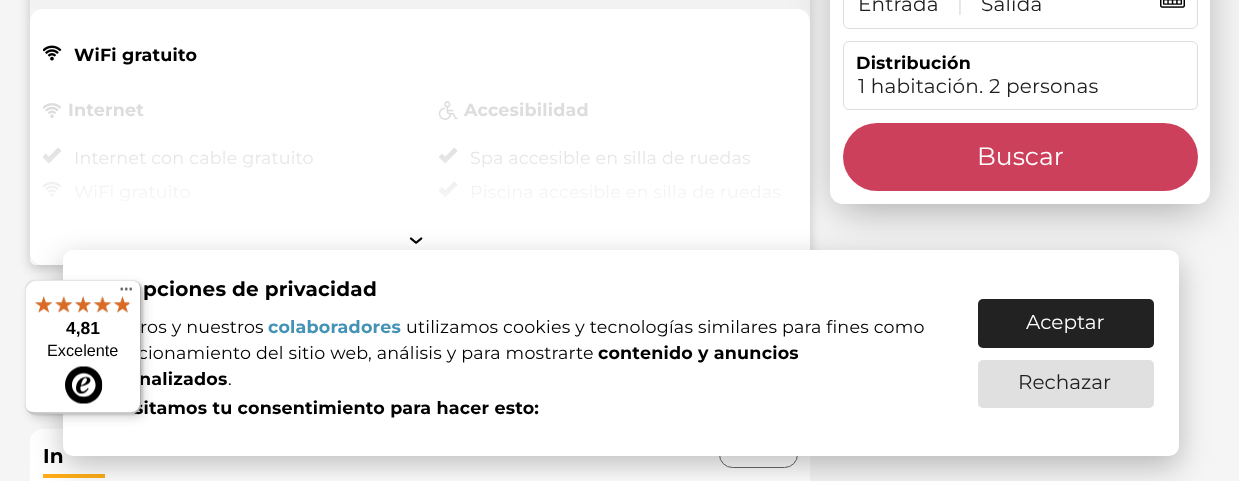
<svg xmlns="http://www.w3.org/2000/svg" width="1239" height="481">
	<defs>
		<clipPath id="clip1"><path d="M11 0H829V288H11ZM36-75H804C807.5-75 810-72.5 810-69V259C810 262.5 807.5 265 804 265H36C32.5 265 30 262.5 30 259V-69C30-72.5 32.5-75 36-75Z" clip-rule="evenodd" /></clipPath>
		<linearGradient id="g1" gradientUnits="userSpaceOnUse" x1="420" y1="101" x2="420" y2="261"><stop offset="0.23" stop-color="#FFFFFF" stop-opacity="0" /><stop offset="0.74" stop-color="#FFFFFF" /></linearGradient>
	</defs>
	<rect width="100%" height="100%" fill="#F5F5F5" />
	<g clip-path="url(#clip1)">
		<rect x="30" y="-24" width="780" height="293" rx="6" fill="#000000" fill-opacity="0.2" filter="blur(6px)" />
	</g>
	<rect x="30" y="0" width="780" height="9" fill="#F2F2F2" />
	<rect x="838" y="-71" width="365" height="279" rx="5" fill="#000000" fill-opacity="0.33" filter="blur(22px)" />
	<rect x="30" y="9" width="780" height="256" rx="13" fill="#FFFFFF" />
	<image x="43" y="45" width="19" height="16" href="assets/img1.png" />
	<text x="74" y="61" font-family="Montserrat" font-size="17.5" font-weight="700" letter-spacing="0.2" fill="#000000">WiFi gratuito</text>
	<image x="43" y="103" width="19" height="15" href="assets/img2.png" />
	<text x="68" y="116" font-family="Montserrat" font-size="17.5" font-weight="700" letter-spacing="0.2" fill="#DDDDDD">Internet</text>
	<image x="43" y="148" width="18" height="16" href="assets/img3.png" />
	<text x="74" y="164" font-family="Montserrat" font-size="17.5" letter-spacing="0.2" fill="#DDDDDD">Internet con cable gratuito</text>
	<image x="43" y="181" width="18" height="16" href="assets/img4.png" />
	<text x="74" y="198" font-family="Montserrat" font-size="17.5" letter-spacing="0.2" fill="#DDDDDD">WiFi gratuito</text>
	<image x="438" y="101" width="20" height="19" href="assets/img5.png" />
	<text x="464" y="116" font-family="Montserrat" font-size="17.5" font-weight="700" letter-spacing="0.2" fill="#DDDDDD">Accesibilidad</text>
	<image x="439" y="147" width="19" height="17" href="assets/img6.png" />
	<text x="470" y="164" font-family="Montserrat" font-size="17.5" letter-spacing="0.2" fill="#DDDDDD">Spa accesible en silla de ruedas</text>
	<image x="438" y="181" width="20" height="16" href="assets/img7.png" />
	<text x="470" y="198" font-family="Montserrat" font-size="17.5" letter-spacing="0.2" fill="#DDDDDD">Piscina accesible en silla de ruedas</text>
	<image x="450" y="215" width="8" height="4" href="assets/img8.png" />
	<rect x="43" y="148" width="737" height="71" fill="url(#g1)" />
	<image x="409" y="237" width="14" height="7" href="assets/img9.png" />
	<rect x="30" y="429" width="780" height="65" rx="13" fill="#FFFFFF" />
	<text x="43" y="463" font-family="Montserrat" font-size="20" font-weight="700" letter-spacing="0.2" fill="#000000">In</text>
	<rect x="43" y="474" width="62" height="4" fill="#FFAE17" />
	<rect x="719.5" y="441.5" width="78" height="26" rx="13" fill="none" stroke="#666666" />
	<rect x="830" y="-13" width="380" height="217" rx="13" fill="#FFFFFF" />
	<rect x="843.5" y="-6.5" width="354" height="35" rx="5.5" fill="none" stroke="#DDDDDD" />
	<text x="858" y="11" font-family="Montserrat" font-size="20" letter-spacing="0.2" fill="#1F1F1F">Entrada</text>
	<text x="957" y="11" font-family="Montserrat" font-size="20" letter-spacing="0.2" fill="#DDDDDD">|</text>
	<text x="981" y="11" font-family="Montserrat" font-size="20" letter-spacing="0.2" fill="#1F1F1F">Salida</text>
	<image x="1160" y="0" width="25" height="8" href="assets/img10.png" />
	<rect x="843.5" y="41.5" width="354" height="68" rx="5.5" fill="none" stroke="#DDDDDD" />
	<text x="856" y="69" font-family="Montserrat" font-size="17.5" font-weight="700" letter-spacing="0.2" fill="#000000">Distribución</text>
	<text x="858" y="93" font-family="Montserrat" font-size="20" letter-spacing="0.2" fill="#1F1F1F">1 habitación. 2 personas</text>
	<rect x="843" y="123" width="355" height="68" rx="34" fill="#CD405B" />
	<text x="977" y="165" font-family="Montserrat" font-size="25" fill="#FFFFFF">Buscar</text>
	<rect x="63" y="260" width="1116" height="206" rx="10" fill="#000000" fill-opacity="0.25" filter="blur(15px)" />
	<rect x="63" y="250" width="1116" height="206" rx="10" fill="#FFFFFF" />
	<rect x="29" y="284" width="116" height="134" rx="10" fill="#000000" fill-opacity="0.15" filter="blur(5px)" />
	<rect x="26" y="281" width="117" height="134" rx="10" fill="#000000" fill-opacity="0.15" filter="blur(1px)" />
	<text x="138" y="359" font-family="Montserrat" font-size="17.5" letter-spacing="0.2" fill="#000000">cionamiento del sitio web, análisis y para mostrarte</text>
	<g font-family="Montserrat" font-size="17.5" font-weight="700" letter-spacing="0.2" fill="#000000">
		<text x="139" y="385">nalizados</text>
		<text x="134" y="414">sitamos tu consentimiento para hacer esto:</text>
	</g>
	<rect x="25" y="280" width="116" height="134" rx="10" fill="#FFFFFF" />
	<path d="M36 281H132C135 281 137 282 139 283C137 281 134 280 131 280H35C29 280 25 284 25 290V404C25 407 26 410 28 412C27 410 26 408 26 405V291C26 286 31 281 36 281Z" fill="#000000" fill-opacity="0.1" />
	<path d="M26 408C28 412 31 414 35 414H131C137 414 141 410 141 404V290C141 288 140 285 139 284C140 285 140 287 140 289V402C140 408 136 412 130 412H34C31 412 28 411 26 408Z" fill="#000000" fill-opacity="0.2" />
	<path d="M27 410C29 413 32 414 35 414H131C137 414 141 410 141 404V290C141 287 140 284 137 282C139 284 140 287 140 289V403C140 409 136 413 130 413H34C32 413 29 412 27 410Z" fill="#323232" fill-opacity="0.2" />
	<image x="120" y="287" width="12" height="4" href="assets/img11.png" />
	<path d="M27 410C29 413 32 414 35 414H131C137 414 141 410 141 404V403C141 409 136 413 131 413H34C32 413 29 412 27 410Z" fill="#FFFFFF" fill-opacity="0.3" />
	<image x="35" y="296" width="17" height="17" href="assets/img12.png" />
	<image x="55" y="296" width="17" height="17" href="assets/img13.png" />
	<image x="75" y="296" width="16" height="17" href="assets/img14.png" />
	<image x="93" y="296" width="18" height="17" href="assets/img15.png" />
	<image x="114" y="296" width="17" height="17" href="assets/img16.png" />
	<image x="35" y="296" width="17" height="17" href="assets/img17.png" />
	<image x="55" y="296" width="18" height="17" href="assets/img18.png" />
	<image x="75" y="296" width="16" height="17" href="assets/img19.png" />
	<image x="93" y="296" width="18" height="17" href="assets/img20.png" />
	<image x="114" y="296" width="15" height="17" href="assets/img21.png" />
	<text x="66" y="334" font-family="Liberation Sans" font-size="17.5" font-weight="700" fill="#000000">4,81</text>
	<text x="47" y="356" font-family="Liberation Sans" font-size="16.25" fill="#000000">Excelente</text>
	<image x="65" y="366" width="38" height="38" href="assets/img22.png" />
	<text x="143" y="296" font-family="Montserrat" font-size="20" font-weight="700" letter-spacing="0.2" fill="#000000">pciones de privacidad</text>
	<text x="140" y="333" font-family="Montserrat" font-size="17.5" letter-spacing="0.2" fill="#000000">ros y nuestros</text>
	<text x="268" y="333" font-family="Montserrat" font-size="17.5" font-weight="700" letter-spacing="0.2" fill="#4493B7">colaboradores</text>
	<text x="406" y="333" font-family="Montserrat" font-size="17.5" letter-spacing="0.2" fill="#000000">utilizamos cookies y tecnologías similares para fines como</text>
	<text x="598" y="359" font-family="Montserrat" font-size="17.5" font-weight="700" letter-spacing="0.2" fill="#000000">contenido y anuncios</text>
	<text x="228" y="385" font-family="Montserrat" font-size="17.5" letter-spacing="0.2" fill="#000000">.</text>
	<rect x="978" y="299" width="176" height="49" rx="5" fill="#222222" />
	<text x="1026" y="329" font-family="Montserrat" font-size="20" fill="#FFFFFF">Aceptar</text>
	<rect x="978" y="360" width="176" height="48" rx="5" fill="#E0E0E0" />
	<text x="1018" y="389" font-family="Montserrat" font-size="20" fill="#1F1F1F">Rechazar</text>
</svg>
